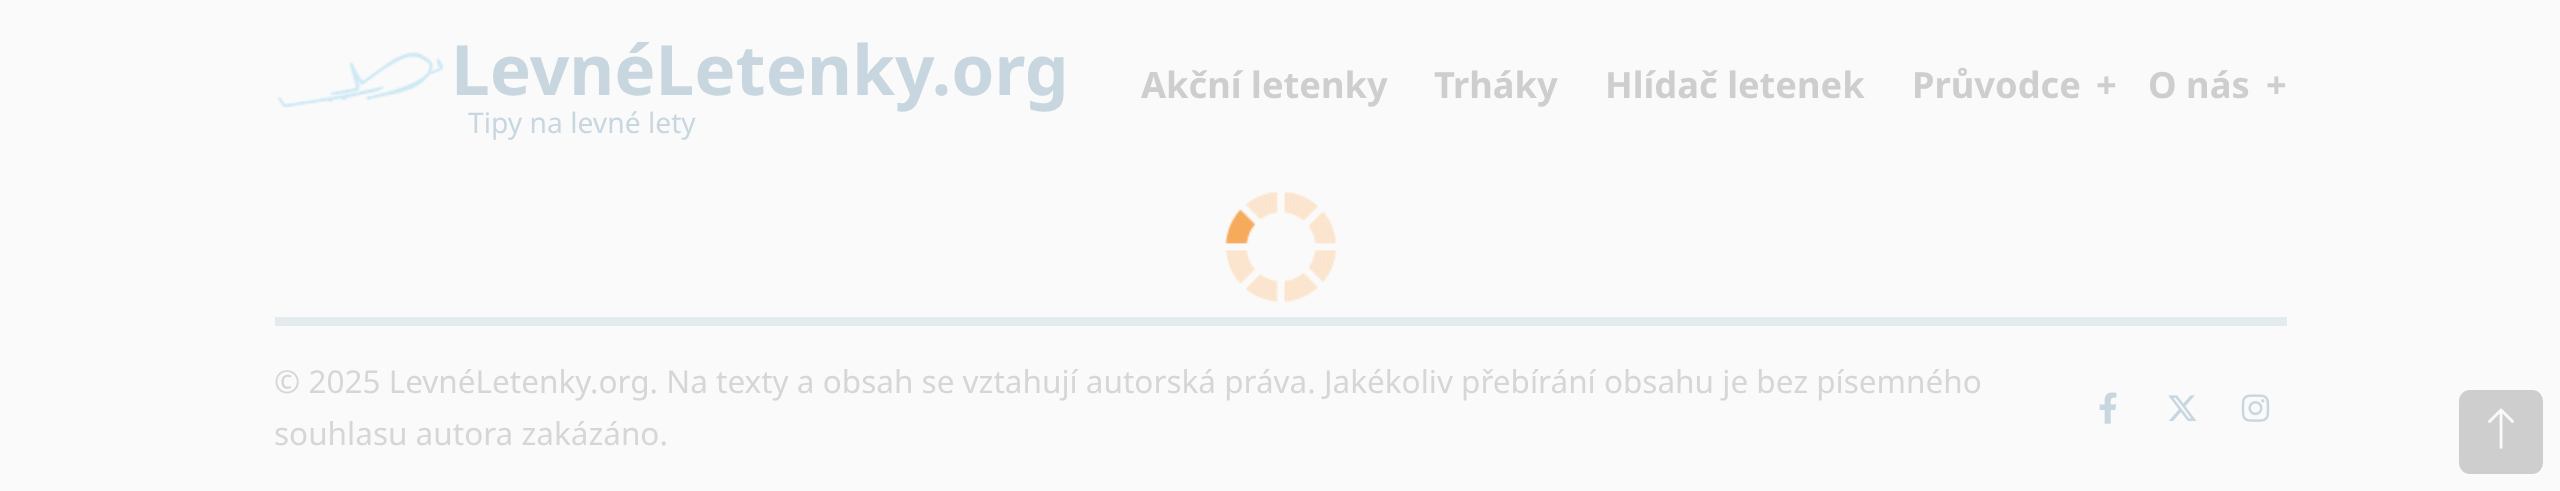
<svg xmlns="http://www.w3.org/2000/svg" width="2560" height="491">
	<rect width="100%" height="100%" fill="#FAFAFA" />
	<image x="277" y="52" width="166" height="56" href="assets/img1.png" />
	<text x="451" y="95" font-family="Noto Sans" font-size="69.25" font-weight="700" fill="#C8D7DF">LevnéLetenky.org</text>
	<text x="468" y="133" font-family="Noto Sans" font-size="28.25" fill="#C8D7DF">Tipy na levné lety</text>
	<g font-family="Noto Sans" font-size="36.25" font-weight="700" fill="#CECECE">
		<text x="1141" y="98">Akční letenky</text>
		<text x="1434" y="98">Trháky</text>
		<text x="1605" y="98">Hlídač letenek</text>
		<text x="1912" y="98">Průvodce</text>
		<text x="2096" y="98">+</text>
		<text x="2148" y="98">O nás</text>
		<text x="2266" y="98">+</text>
	</g>
	<rect x="275" y="317" width="2012" height="9" fill="#E4EBEE" />
	<g font-family="Noto Sans" font-size="31.5" fill="#D6D6D6">
		<text x="274" y="393">© 2025 LevnéLetenky.org. Na texty a obsah se vztahují autorská práva. Jakékoliv přebírání obsahu je bez písemného</text>
		<text x="274" y="445">souhlasu autora zakázáno.</text>
	</g>
	<image x="2099" y="392" width="18" height="32" href="assets/img2.png" />
	<image x="2168" y="395" width="29" height="26" href="assets/img3.png" />
	<image x="2241" y="394" width="29" height="28" href="assets/img4.png" />
	<rect x="2459" y="390" width="84" height="84" rx="11" fill="#CECECE" />
	<image x="2488" y="408" width="26" height="41" href="assets/img5.png" />
	<image x="1225" y="191" width="112" height="112" href="assets/img6.png" />
</svg>
